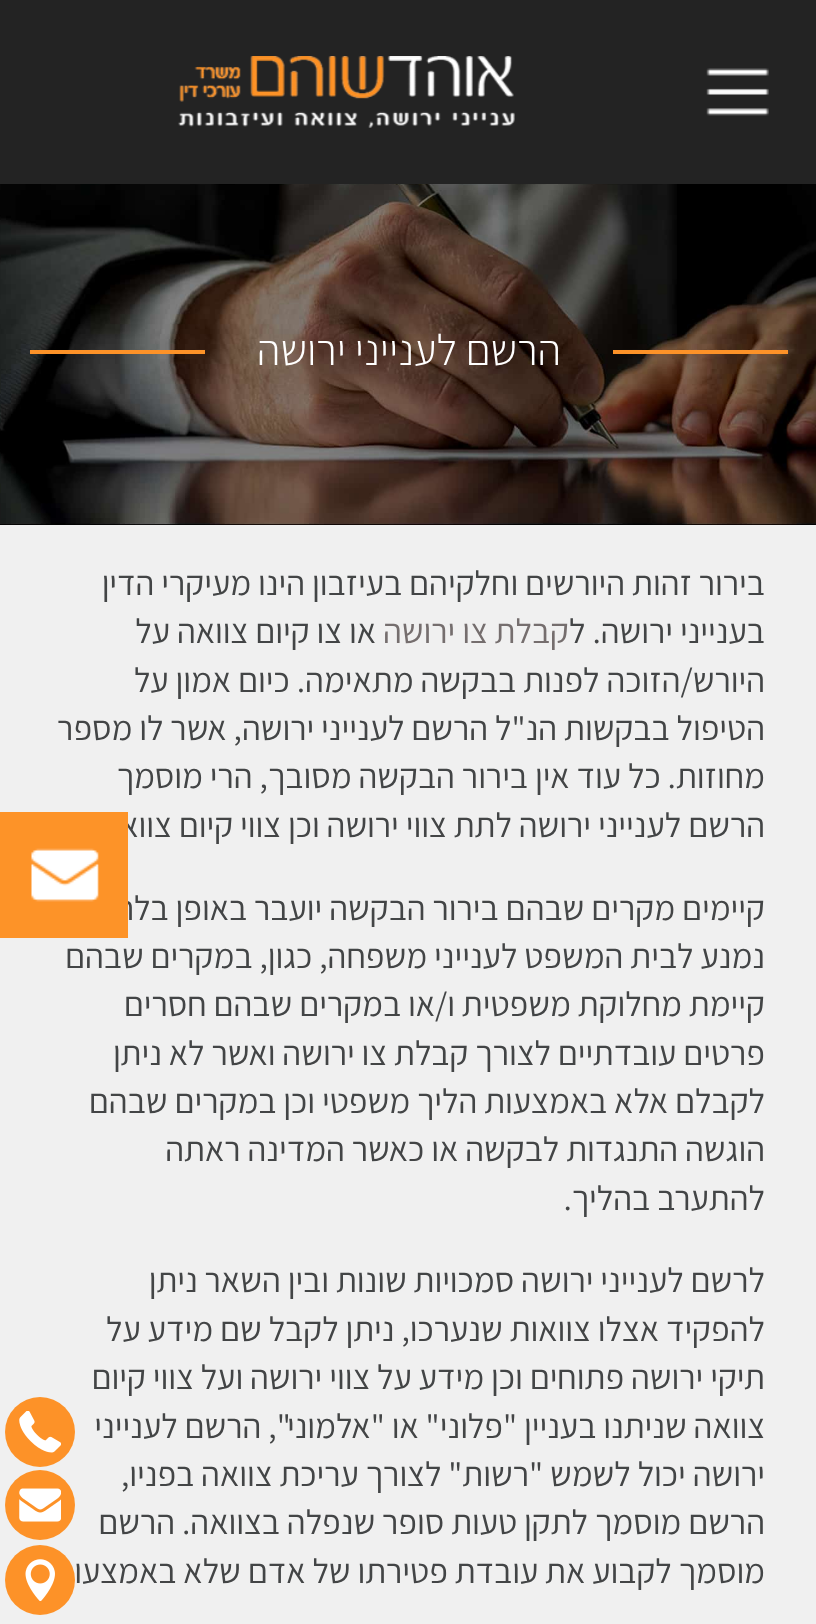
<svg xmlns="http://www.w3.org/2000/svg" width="816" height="1624">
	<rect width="100%" height="100%" fill="#F0F0F0" />
	<rect x="0" y="0" width="816" height="184" fill="#232323" />
	<image x="706" y="68" width="63" height="48" href="assets/img1.png" />
	<image x="178" y="56" width="337" height="72" href="assets/img2.png" />
	<image x="0" y="184" width="816" height="341" href="assets/img3.png" />
	<rect x="613" y="350" width="175" height="4" fill="#FD9228" />
	<text x="561" y="365" font-family="Assistant" font-size="43.5" font-weight="300" direction="rtl" fill="#FFFFFF">הרשם לענייני ירושה</text>
	<rect x="30" y="350" width="175" height="4" fill="#FD9228" />
	<g font-family="Assistant" font-size="34.5" direction="rtl" fill="#434546">
		<text x="765" y="595">בירור זהות היורשים וחלקיהם בעיזבון הינו מעיקרי הדין</text>
		<text x="765" y="643">בענייני ירושה. ל</text>
	</g>
	<text x="569" y="643" font-family="Assistant" font-size="34.5" direction="rtl" fill="#756E6E">קבלת צו ירושה</text>
	<g font-family="Assistant" font-size="34.5" direction="rtl" fill="#434546">
		<text x="376" y="643">או צו קיום צוואה על</text>
		<text x="765" y="692">היורש/הזוכה לפנות בבקשה מתאימה. כיום אמון על</text>
		<text x="765" y="740">הטיפול בבקשות הנ"ל הרשם לענייני ירושה, אשר לו מספר</text>
		<text x="765" y="788">מחוזות. כל עוד אין בירור הבקשה מסובך, הרי מוסמך</text>
		<text x="765" y="837">הרשם לענייני ירושה לתת צווי ירושה וכן צווי קיום צוואה.</text>
		<text x="765" y="920">קיימים מקרים שבהם בירור הבקשה יועבר באופן בלתי</text>
		<text x="765" y="968">נמנע לבית המשפט לענייני משפחה, כגון, במקרים שבהם</text>
		<text x="765" y="1016">קיימת מחלוקת משפטית ו/או במקרים שבהם חסרים</text>
		<text x="765" y="1065">פרטים עובדתיים לצורך קבלת צו ירושה ואשר לא ניתן</text>
		<text x="765" y="1113">לקבלם אלא באמצעות הליך משפטי וכן במקרים שבהם</text>
		<text x="765" y="1161">הוגשה התנגדות לבקשה או כאשר המדינה ראתה</text>
		<text x="765" y="1210">להתערב בהליך.</text>
		<text x="765" y="1292">לרשם לענייני ירושה סמכויות שונות ובין השאר ניתן</text>
		<text x="765" y="1341">להפקיד אצלו צוואות שנערכו, ניתן לקבל שם מידע על</text>
		<text x="765" y="1389">תיקי ירושה פתוחים וכן מידע על צווי ירושה ועל צווי קיום</text>
		<text x="765" y="1438">צוואה שניתנו בעניין "פלוני" או "אלמוני", הרשם לענייני</text>
		<text x="765" y="1486">ירושה יכול לשמש "רשות" לצורך עריכת צוואה בפניו,</text>
		<text x="765" y="1534">הרשם מוסמך לתקן טעות סופר שנפלה בצוואה. הרשם</text>
		<text x="765" y="1583">מוסמך לקבוע את עובדת פטירתו של אדם שלא באמצעות</text>
	</g>
	<image x="0" y="812" width="128" height="126" href="assets/img4.png" />
	<circle cx="40" cy="1432" r="35" fill="#FD9228" />
	<image x="19" y="1411" width="42" height="42" href="assets/img5.png" />
	<circle cx="40" cy="1505" r="35" fill="#FD9228" />
	<image x="19" y="1488" width="42" height="34" href="assets/img6.png" />
	<circle cx="40" cy="1580" r="35" fill="#FD9228" />
	<image x="25" y="1559" width="30" height="42" href="assets/img7.png" />
</svg>
